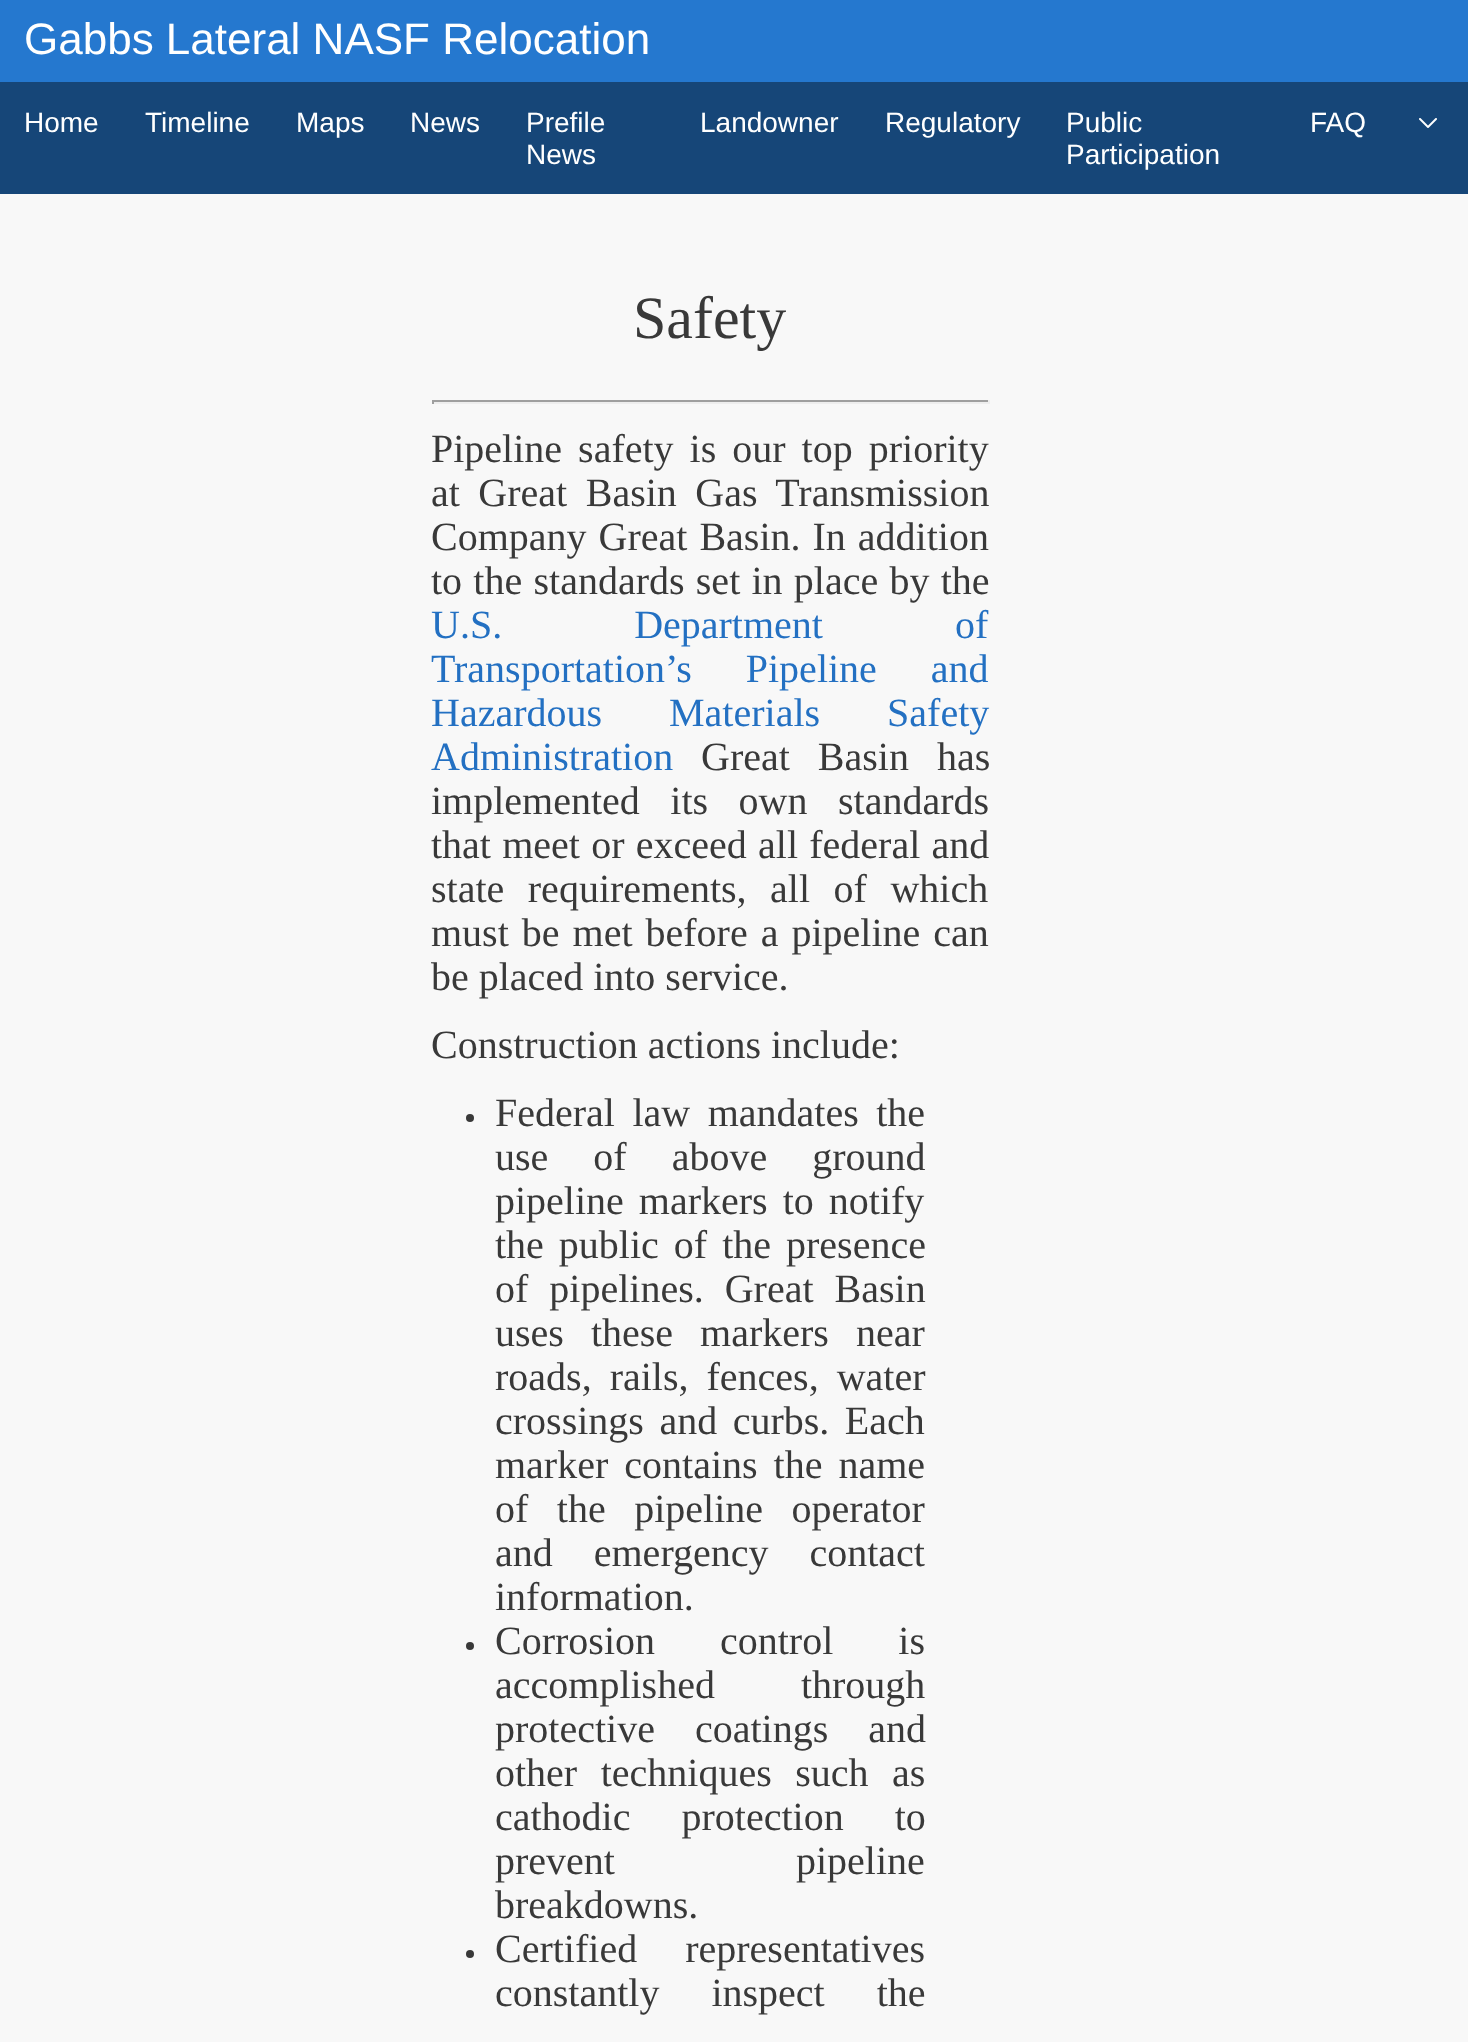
<svg xmlns="http://www.w3.org/2000/svg" width="1468" height="2042">
	<rect width="100%" height="100%" fill="#F8F8F8" />
	<rect x="0" y="0" width="1468" height="82" fill="#2578CF" />
	<text x="24" y="54" font-family="Liberation Sans" font-size="44" fill="#FFFFFF">Gabbs Lateral NASF Relocation</text>
	<rect x="0" y="82" width="1468" height="112" fill="#164678" />
	<g font-family="Liberation Sans" font-size="28" fill="#FFFFFF">
		<text x="24" y="132">Home</text>
		<text x="145" y="132">Timeline</text>
		<text x="296" y="132">Maps</text>
		<text x="410" y="132">News</text>
		<text x="526" y="132">Prefile</text>
		<text x="526" y="164">News</text>
		<text x="700" y="132">Landowner</text>
		<text x="885" y="132">Regulatory</text>
		<text x="1066" y="132">Public</text>
		<text x="1066" y="164">Participation</text>
		<text x="1310" y="132">FAQ</text>
	</g>
	<image x="1419" y="118" width="18" height="10" href="assets/img1.png" />
	<text x="633" y="338" font-family="Liberation Serif" font-size="60" fill="#393939">Safety</text>
	<rect x="432" y="400" width="558" height="2" fill="#9F9F9F" />
	<rect x="988" y="400" width="2" height="4" fill="#EEEEEE" />
	<rect x="432" y="402" width="558" height="2" fill="#EEEEEE" />
	<rect x="432" y="400" width="2" height="4" fill="#9F9F9F" />
	<g font-family="Liberation Serif" font-size="40" fill="#393939">
		<text x="431" y="462" word-spacing="6">Pipeline safety is our top priority</text>
		<text x="431" y="506" word-spacing="8.5">at Great Basin Gas Transmission</text>
		<text x="431" y="550" word-spacing="2">Company Great Basin. In addition</text>
		<text x="431" y="594" word-spacing="1.25">to the standards set in place by the</text>
	</g>
	<g font-family="Liberation Serif" font-size="40" fill="#2370C2">
		<text x="431" y="638" word-spacing="122">U.S. Department of</text>
		<text x="431" y="682" word-spacing="44">Transportation’s Pipeline and</text>
		<text x="431" y="726" word-spacing="57">Hazardous Materials Safety</text>
		<text x="431" y="770">Administration</text>
	</g>
	<g font-family="Liberation Serif" font-size="40" fill="#393939">
		<text x="701" y="770" word-spacing="18">Great Basin has</text>
		<text x="431" y="814" word-spacing="20.5">implemented its own standards</text>
		<text x="431" y="858" word-spacing="1.25">that meet or exceed all federal and</text>
		<text x="431" y="902" word-spacing="13.5">state requirements, all of which</text>
		<text x="431" y="946" word-spacing="3">must be met before a pipeline can</text>
		<text x="431" y="990">be placed into service.</text>
		<text x="431" y="1058">Construction actions include:</text>
	</g>
	<circle cx="470" cy="1118" r="4" fill="#393939" />
	<g font-family="Liberation Serif" font-size="40" fill="#393939">
		<text x="495" y="1126" word-spacing="7.5">Federal law mandates the</text>
		<text x="495" y="1170" word-spacing="35">use of above ground</text>
		<text x="495" y="1214" word-spacing="5">pipeline markers to notify</text>
		<text x="495" y="1258" word-spacing="5">the public of the presence</text>
		<text x="495" y="1302" word-spacing="11">of pipelines. Great Basin</text>
		<text x="495" y="1346" word-spacing="17">uses these markers near</text>
		<text x="495" y="1390" word-spacing="8">roads, rails, fences, water</text>
		<text x="495" y="1434" word-spacing="5.5">crossings and curbs. Each</text>
		<text x="495" y="1478" word-spacing="6">marker contains the name</text>
		<text x="495" y="1522" word-spacing="18.5">of the pipeline operator</text>
		<text x="495" y="1566" word-spacing="31">and emergency contact</text>
		<text x="495" y="1610">information.</text>
	</g>
	<circle cx="470" cy="1646" r="4" fill="#393939" />
	<g font-family="Liberation Serif" font-size="40" fill="#393939">
		<text x="495" y="1654" word-spacing="55">Corrosion control is</text>
		<text x="495" y="1698" word-spacing="76">accomplished through</text>
		<text x="495" y="1742" word-spacing="30">protective coatings and</text>
		<text x="495" y="1786" word-spacing="13.5">other techniques such as</text>
		<text x="495" y="1830" word-spacing="41">cathodic protection to</text>
		<text x="495" y="1874" word-spacing="171">prevent pipeline</text>
		<text x="495" y="1918">breakdowns.</text>
	</g>
	<circle cx="470" cy="1954" r="4" fill="#393939" />
	<g font-family="Liberation Serif" font-size="40" fill="#393939">
		<text x="495" y="1962" word-spacing="38">Certified representatives</text>
		<text x="495" y="2006" word-spacing="42">constantly inspect the</text>
	</g>
</svg>
